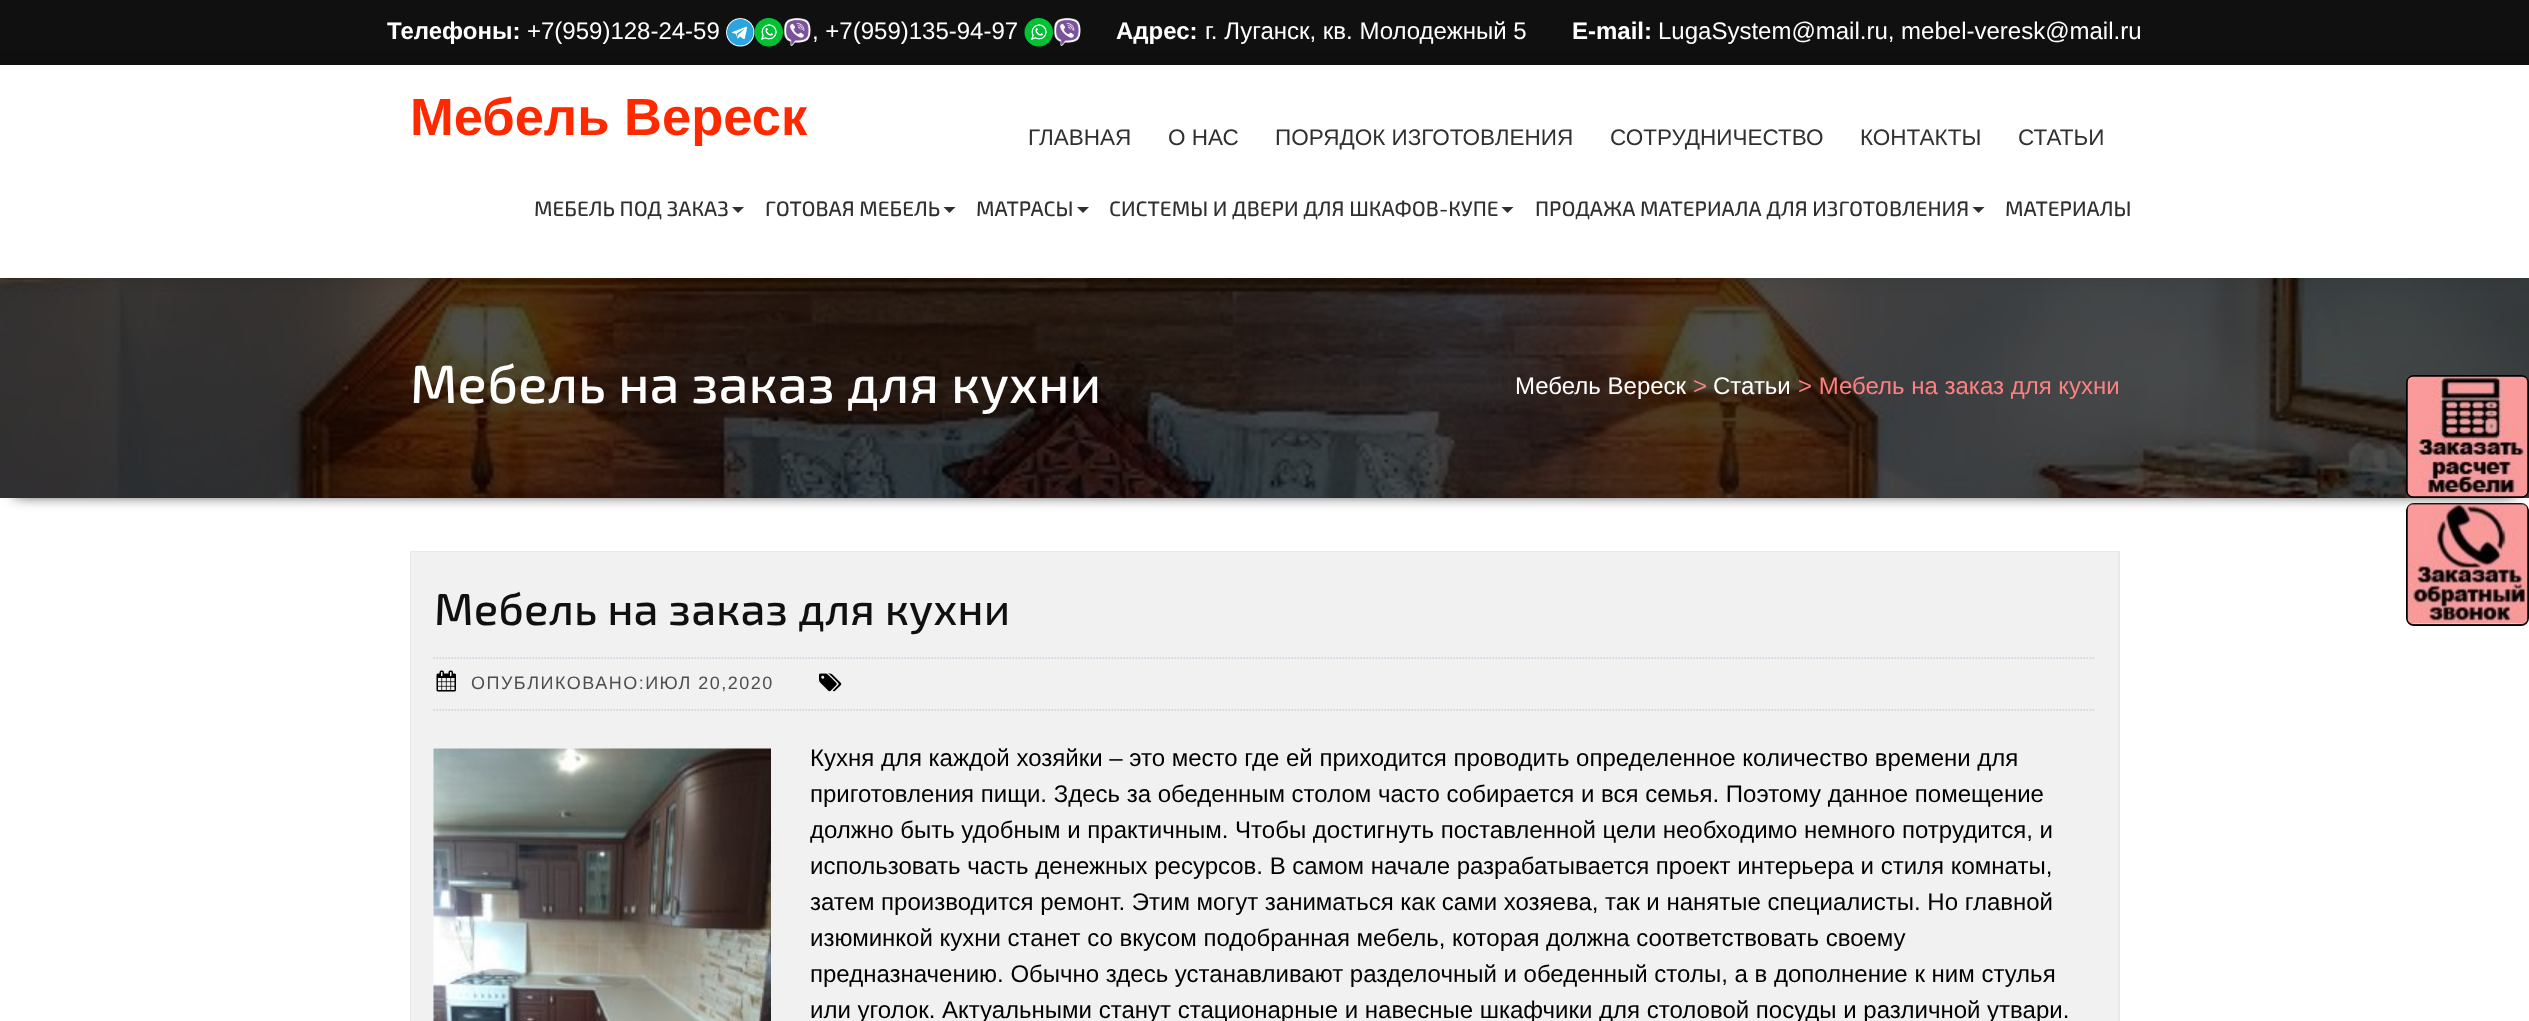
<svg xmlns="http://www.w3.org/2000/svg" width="2529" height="1021">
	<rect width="100%" height="100%" fill="#FFFFFF" />
	<rect x="0" y="0" width="2529" height="65" fill="#101010" />
	<text x="387" y="39" font-family="Liberation Sans" font-size="24" font-weight="700" fill="#FFFFFF">Телефоны:</text>
	<text x="527" y="39" font-family="Liberation Sans" font-size="24" fill="#FFFFFF">+7(959)128-24-59</text>
	<image x="726" y="18" width="29" height="29" href="assets/img1.png" />
	<image x="754" y="18" width="29" height="29" href="assets/img2.png" />
	<image x="783" y="18" width="28" height="28" href="assets/img3.png" />
	<text x="812" y="39" font-family="Liberation Sans" font-size="24" fill="#FFFFFF">, +7(959)135-94-97</text>
	<image x="1024" y="18" width="29" height="29" href="assets/img4.png" />
	<image x="1053" y="18" width="28" height="28" href="assets/img5.png" />
	<text x="1116" y="39" font-family="Liberation Sans" font-size="24" font-weight="700" fill="#FFFFFF">Адрес:</text>
	<text x="1205" y="39" font-family="Liberation Sans" font-size="24" fill="#FFFFFF">г. Луганск, кв. Молодежный 5</text>
	<text x="1572" y="39" font-family="Liberation Sans" font-size="24" font-weight="700" fill="#FFFFFF">E-mail:</text>
	<text x="1658" y="39" font-family="Liberation Sans" font-size="24" fill="#FFFFFF">LugaSystem@mail.ru, mebel-veresk@mail.ru</text>
	<rect x="15" y="303" width="2499" height="191" fill="#000000" filter="blur(7.5px)" />
	<image x="0" y="278" width="2529" height="220" href="assets/img6.png" />
	<rect x="2" y="65" width="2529" height="213" fill="#000000" fill-opacity="0.1" filter="blur(7.5px)" />
	<rect x="0" y="65" width="2529" height="213" fill="#FFFFFF" />
	<text x="410" y="135" font-family="Liberation Sans" font-size="52.5" font-weight="700" fill="#FF2900">Мебель Вереск</text>
	<g font-family="Liberation Sans" font-size="22.5" fill="#303030">
		<text x="1028" y="145">ГЛАВНАЯ</text>
		<text x="1168" y="145">О НАС</text>
		<text x="1275" y="145">ПОРЯДОК ИЗГОТОВЛЕНИЯ</text>
		<text x="1610" y="145">СОТРУДНИЧЕСТВО</text>
		<text x="1860" y="145">КОНТАКТЫ</text>
		<text x="2018" y="145">СТАТЬИ</text>
	</g>
	<text x="534" y="216" font-family="'Exo 2'" font-size="21" font-weight="500" fill="#303030">МЕБЕЛЬ ПОД ЗАКАЗ</text>
	<path d="M732 207H744L738 213Z" fill="#303030" />
	<text x="765" y="216" font-family="'Exo 2'" font-size="21" font-weight="500" fill="#303030">ГОТОВАЯ МЕБЕЛЬ</text>
	<path d="M943.5 207H955.5L949.5 213Z" fill="#303030" />
	<text x="976" y="216" font-family="'Exo 2'" font-size="21" font-weight="500" fill="#303030">МАТРАСЫ</text>
	<path d="M1077 207H1089L1083 213Z" fill="#303030" />
	<text x="1109" y="216" font-family="'Exo 2'" font-size="21" font-weight="500" fill="#303030">СИСТЕМЫ И ДВЕРИ ДЛЯ ШКАФОВ-КУПЕ</text>
	<path d="M1501.5 207H1513.5L1507.5 213Z" fill="#303030" />
	<text x="1535" y="216" font-family="'Exo 2'" font-size="21" font-weight="500" fill="#303030">ПРОДАЖА МАТЕРИАЛА ДЛЯ ИЗГОТОВЛЕНИЯ</text>
	<path d="M1972.5 207H1984.5L1978.5 213Z" fill="#303030" />
	<text x="2005" y="216" font-family="'Exo 2'" font-size="21" font-weight="500" fill="#303030">МАТЕРИАЛЫ</text>
	<text x="410" y="403" font-family="'Exo 2'" font-size="54" font-weight="500" fill="#FFFFFF">Мебель на заказ для кухни</text>
	<text x="1515" y="394" font-family="Liberation Sans" font-size="24" fill="#FFFFFF">Мебель Вереск</text>
	<text x="1693" y="394" font-family="Liberation Sans" font-size="24" fill="#FD8181">&gt;</text>
	<text x="1713" y="394" font-family="Liberation Sans" font-size="24" fill="#FFFFFF">Статьи</text>
	<text x="1798" y="394" font-family="Liberation Sans" font-size="24" fill="#FD8181">&gt; Мебель на заказ для кухни</text>
	<rect x="2407" y="376" width="121" height="121" rx="7" fill="none" stroke="#000000" stroke-width="2" />
	<image x="2407" y="376" width="121" height="121" href="assets/img7.png" />
	<rect x="2407" y="504" width="121" height="121" rx="7" fill="none" stroke="#000000" stroke-width="2" />
	<image x="2407" y="503" width="121" height="122" href="assets/img8.png" />
	<rect x="411" y="552" width="1708" height="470" fill="none" stroke="#E8E8E8" stroke-width="2" />
	<rect x="411" y="552" width="1707" height="469" fill="#F1F1F1" />
	<text x="434" y="625" font-family="'Exo 2'" font-size="45" font-weight="500" fill="#101010">Мебель на заказ для кухни</text>
	<path d="M433.5 658H2095.5" fill="none" stroke="#C5D1DC" stroke-width="1.5" stroke-dasharray="1.5 1.5" />
	<path d="M433.5 710H2095.5" fill="none" stroke="#C5D1DC" stroke-width="1.5" stroke-dasharray="1.5 1.5" />
	<image x="436" y="670" width="20" height="22" href="assets/img9.png" />
	<text x="471" y="689" font-family="Arimo" font-size="18" letter-spacing="1.5" fill="#504D4D">ОПУБЛИКОВАНО:ИЮЛ 20,2020</text>
	<image x="819" y="673" width="23" height="19" href="assets/img10.png" />
	<image x="433" y="748" width="338" height="273" href="assets/img11.png" />
	<g font-family="Liberation Sans" font-size="24" fill="#000000">
		<text x="810" y="766">Кухня для каждой хозяйки – это место где ей приходится проводить определенное количество времени для</text>
		<text x="810" y="802">приготовления пищи. Здесь за обеденным столом часто собирается и вся семья. Поэтому данное помещение</text>
		<text x="810" y="838">должно быть удобным и практичным. Чтобы достигнуть поставленной цели необходимо немного потрудится, и</text>
		<text x="810" y="874">использовать часть денежных ресурсов. В самом начале разрабатывается проект интерьера и стиля комнаты,</text>
		<text x="810" y="910">затем производится ремонт. Этим могут заниматься как сами хозяева, так и нанятые специалисты. Но главной</text>
		<text x="810" y="946">изюминкой кухни станет со вкусом подобранная мебель, которая должна соответствовать своему</text>
		<text x="810" y="982">предназначению. Обычно здесь устанавливают разделочный и обеденный столы, а в дополнение к ним стулья</text>
		<text x="810" y="1018">или уголок. Актуальными станут стационарные и навесные шкафчики для столовой посуды и различной утвари.</text>
	</g>
</svg>
